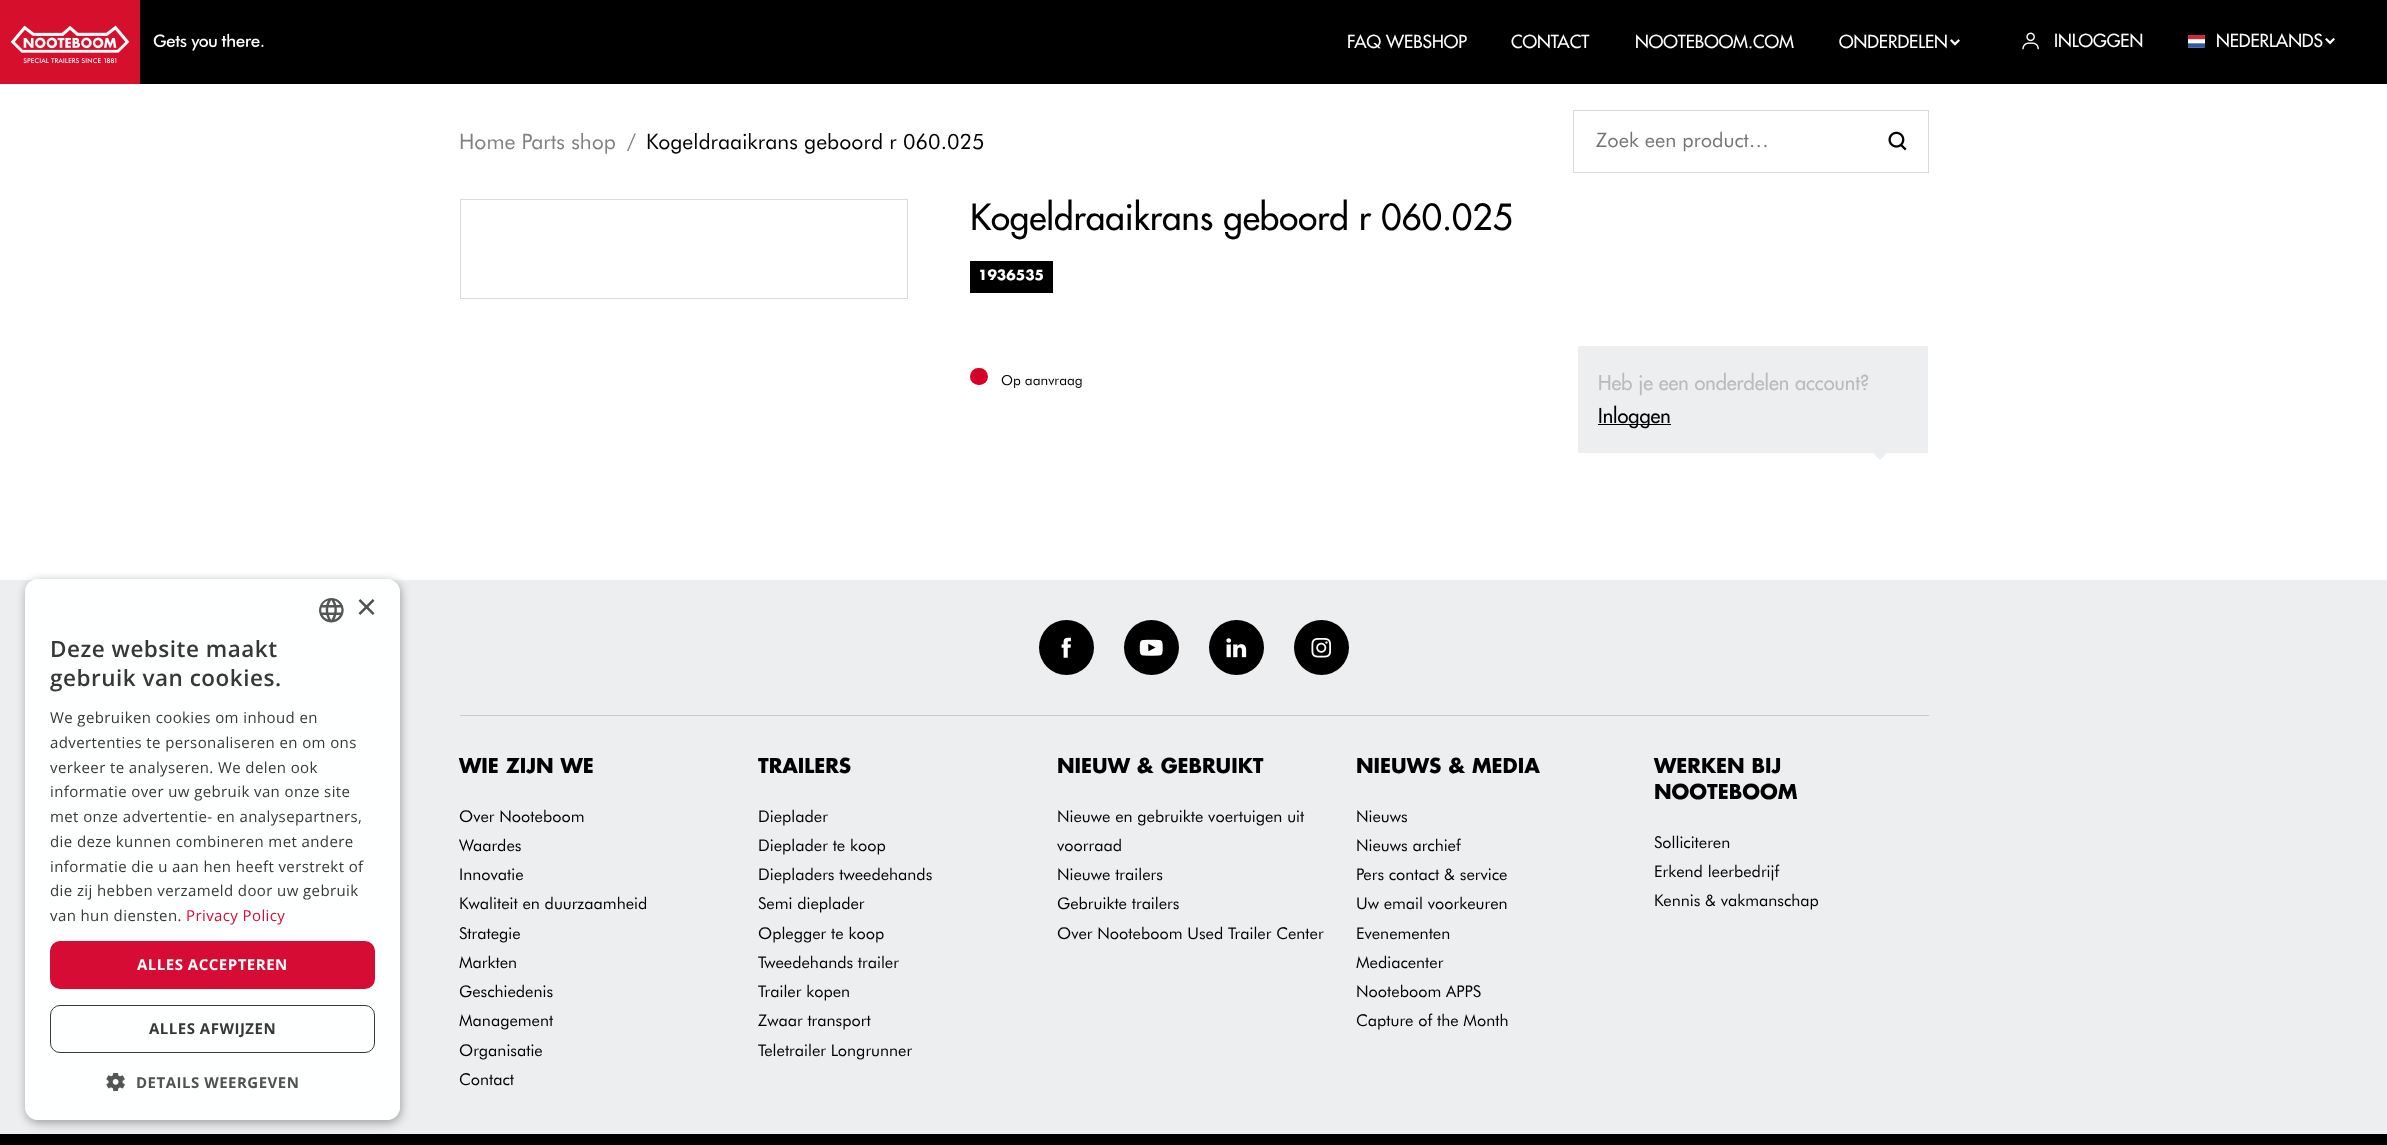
<svg xmlns="http://www.w3.org/2000/svg" width="2387" height="1145">
	<defs>
		<clipPath id="clip1"><path d="M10 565H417V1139H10ZM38 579H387C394 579 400 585 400 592V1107C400 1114 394 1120 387 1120H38C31 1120 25 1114 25 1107V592C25 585 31 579 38 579Z" clip-rule="evenodd" /></clipPath>
	</defs>
	<rect width="100%" height="100%" fill="#FFFFFF" />
	<rect x="140" y="0" width="2247" height="84" fill="#000000" />
	<image x="0" y="0" width="264" height="84" href="assets/img1.png" />
	<g font-family="Futura" font-size="17.5" font-weight="500" fill="#FFFFFF">
		<text x="1347" y="48">FAQ WEBSHOP</text>
		<text x="1511" y="48">CONTACT</text>
		<text x="1635" y="48">NOOTEBOOM.COM</text>
		<text x="1839" y="48">ONDERDELEN</text>
	</g>
	<image x="1950" y="39" width="10" height="7" href="assets/img2.png" />
	<image x="2022" y="32" width="17" height="18" href="assets/img3.png" />
	<text x="2054" y="47" font-family="Futura" font-size="17.5" font-weight="500" fill="#FFFFFF">INLOGGEN</text>
	<image x="2188" y="35" width="17" height="13" href="assets/img4.png" />
	<text x="2216" y="47" font-family="Futura" font-size="17.5" font-weight="500" fill="#FFFFFF">NEDERLANDS</text>
	<image x="2325" y="38" width="10" height="7" href="assets/img5.png" />
	<g font-family="Futura" font-size="21.25" fill="#808080">
		<text x="459" y="149">Home Parts shop</text>
		<text x="627" y="149">/</text>
	</g>
	<text x="646" y="149" font-family="Futura" font-size="21.25" fill="#000000">Kogeldraaikrans geboord r 060.025</text>
	<image x="1888" y="131" width="19" height="20" href="assets/img6.png" />
	<rect x="1573.5" y="110.5" width="355" height="62" fill="none" stroke="#D9D9D9" />
	<text x="1596" y="147" font-family="Futura" font-size="20" fill="#757575">Zoek een product…</text>
	<rect x="460.5" y="199.5" width="447" height="99" fill="none" stroke="#D9D9D9" />
	<text x="970" y="230" font-family="Futura" font-size="35" font-weight="500" fill="#000000">Kogeldraaikrans geboord r 060.025</text>
	<rect x="970" y="261" width="83" height="32" fill="#000000" />
	<text x="978" y="280" font-family="Futura" font-size="13.75" font-weight="700" fill="#FFFFFF">1936535</text>
	<rect x="970" y="368" width="18" height="17" rx="8.5" fill="#D6002A" />
	<text x="1001" y="385" font-family="Futura" font-size="13.75" fill="#000000">Op aanvraag</text>
	<rect x="1578" y="346" width="350" height="107" fill="#EDEEF0" />
	<text x="1598" y="390" font-family="Futura" font-size="20" font-weight="500" fill="#BBBBBB">Heb je een onderdelen account?</text>
	<rect x="1598" y="424" width="73" height="1" fill="#000000" />
	<text x="1598" y="423" font-family="Futura" font-size="20" font-weight="500" fill="#000000">Inloggen</text>
	<path d="M1872.5 452.5H1887.5L1880 460Z" fill="#EDEEF0" />
	<rect x="0" y="580" width="2387" height="554" fill="#EDEEF0" />
	<rect x="0" y="1134" width="2387" height="11" fill="#000000" />
	<g clip-path="url(#clip1)">
		<rect x="26" y="581" width="375" height="542" rx="13" fill="#000000" fill-opacity="0.33" filter="blur(5px)" />
	</g>
	<rect x="25" y="579" width="375" height="541" rx="13" fill="#FFFFFF" fill-opacity="0.95" />
	<image x="319" y="598" width="25" height="25" href="assets/img7.png" />
	<text x="356" y="619" font-family="Liberation Sans" font-size="36" fill="#525253">×</text>
	<g font-family="Open Sans" font-size="22.5" font-weight="600" letter-spacing="0.5" fill="#373737">
		<text x="50" y="657">Deze website maakt</text>
		<text x="50" y="686">gebruik van cookies.</text>
	</g>
	<g font-family="Open Sans" font-size="15" letter-spacing="0.4" fill="#373737">
		<text x="50" y="723">We gebruiken cookies om inhoud en</text>
		<text x="50" y="748">advertenties te personaliseren en om ons</text>
		<text x="50" y="773">verkeer te analyseren. We delen ook</text>
		<text x="50" y="797">informatie over uw gebruik van onze site</text>
		<text x="50" y="822">met onze advertentie- en analysepartners,</text>
		<text x="50" y="847">die deze kunnen combineren met andere</text>
		<text x="50" y="872">informatie die u aan hen heeft verstrekt of</text>
		<text x="50" y="896">die zij hebben verzameld door uw gebruik</text>
		<text x="50" y="921">van hun diensten.</text>
	</g>
	<text x="186" y="921" font-family="Open Sans" font-size="15" letter-spacing="0.4" fill="#D70C34">Privacy Policy</text>
	<rect x="50" y="941" width="325" height="48" rx="10" fill="#D70C34" />
	<text x="137" y="970" font-family="Open Sans" font-size="15" font-weight="700" letter-spacing="0.5" fill="#FFFFFF">ALLES ACCEPTEREN</text>
	<rect x="50.5" y="1005.5" width="324" height="47" rx="9.5" fill="none" stroke="#373737" />
	<text x="149" y="1034" font-family="Open Sans" font-size="15" font-weight="700" letter-spacing="0.5" fill="#373737">ALLES AFWIJZEN</text>
	<image x="106" y="1073" width="19" height="18" href="assets/img8.png" />
	<text x="136" y="1088" font-family="Open Sans" font-size="15" font-weight="700" letter-spacing="0.5" fill="#525253">DETAILS WEERGEVEN</text>
	<rect x="460" y="715" width="1469" height="1" fill="#C9CACC" />
	<circle cx="1066.5" cy="647.5" r="27.5" fill="#000000" />
	<image x="1061" y="637" width="10" height="21" href="assets/img9.png" />
	<circle cx="1151.5" cy="647.5" r="27.5" fill="#000000" />
	<image x="1139" y="639" width="24" height="17" href="assets/img10.png" />
	<circle cx="1236.5" cy="647.5" r="27.5" fill="#000000" />
	<image x="1226" y="638" width="21" height="20" href="assets/img11.png" />
	<circle cx="1321.5" cy="647.5" r="27.5" fill="#000000" />
	<image x="1311" y="638" width="20" height="20" href="assets/img12.png" />
	<text x="459" y="773" font-family="Futura" font-size="20" font-weight="700" fill="#000000">WIE ZIJN WE</text>
	<g font-family="Futura" font-size="16.25" fill="#000000">
		<text x="459" y="822">Over Nooteboom</text>
		<text x="459" y="851">Waardes</text>
		<text x="459" y="880">Innovatie</text>
		<text x="459" y="909">Kwaliteit en duurzaamheid</text>
		<text x="459" y="939">Strategie</text>
		<text x="459" y="968">Markten</text>
		<text x="459" y="997">Geschiedenis</text>
		<text x="459" y="1026">Management</text>
		<text x="459" y="1056">Organisatie</text>
		<text x="459" y="1085">Contact</text>
	</g>
	<text x="758" y="773" font-family="Futura" font-size="20" font-weight="700" fill="#000000">TRAILERS</text>
	<g font-family="Futura" font-size="16.25" fill="#000000">
		<text x="758" y="822">Dieplader</text>
		<text x="758" y="851">Dieplader te koop</text>
		<text x="758" y="880">Diepladers tweedehands</text>
		<text x="758" y="909">Semi dieplader</text>
		<text x="758" y="939">Oplegger te koop</text>
		<text x="758" y="968">Tweedehands trailer</text>
		<text x="758" y="997">Trailer kopen</text>
		<text x="758" y="1026">Zwaar transport</text>
		<text x="758" y="1056">Teletrailer Longrunner</text>
	</g>
	<text x="1057" y="773" font-family="Futura" font-size="20" font-weight="700" fill="#000000">NIEUW &amp; GEBRUIKT</text>
	<g font-family="Futura" font-size="16.25" fill="#000000">
		<text x="1057" y="822">Nieuwe en gebruikte voertuigen uit</text>
		<text x="1057" y="851">voorraad</text>
		<text x="1057" y="880">Nieuwe trailers</text>
		<text x="1057" y="909">Gebruikte trailers</text>
		<text x="1057" y="939">Over Nooteboom Used Trailer Center</text>
	</g>
	<text x="1356" y="773" font-family="Futura" font-size="20" font-weight="700" fill="#000000">NIEUWS &amp; MEDIA</text>
	<g font-family="Futura" font-size="16.25" fill="#000000">
		<text x="1356" y="822">Nieuws</text>
		<text x="1356" y="851">Nieuws archief</text>
		<text x="1356" y="880">Pers contact &amp; service</text>
		<text x="1356" y="909">Uw email voorkeuren</text>
		<text x="1356" y="939">Evenementen</text>
		<text x="1356" y="968">Mediacenter</text>
		<text x="1356" y="997">Nooteboom APPS</text>
		<text x="1356" y="1026">Capture of the Month</text>
	</g>
	<g font-family="Futura" font-size="20" font-weight="700" fill="#000000">
		<text x="1654" y="773">WERKEN BIJ</text>
		<text x="1654" y="799">NOOTEBOOM</text>
	</g>
	<g font-family="Futura" font-size="16.25" fill="#000000">
		<text x="1654" y="848">Solliciteren</text>
		<text x="1654" y="877">Erkend leerbedrijf</text>
		<text x="1654" y="906">Kennis &amp; vakmanschap</text>
	</g>
</svg>
